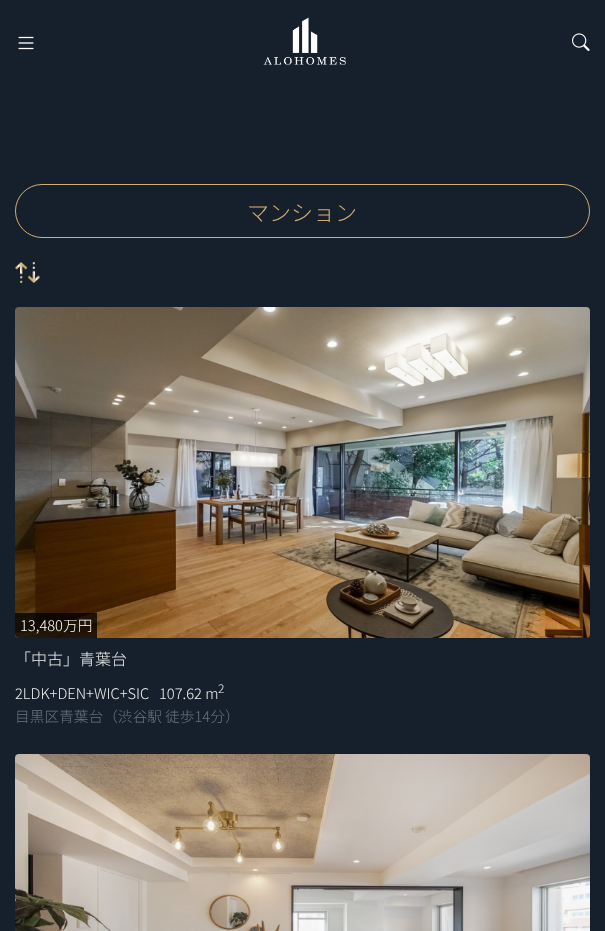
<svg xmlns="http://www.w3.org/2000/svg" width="605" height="931">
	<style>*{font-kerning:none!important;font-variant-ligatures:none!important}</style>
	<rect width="100%" height="100%" fill="#16202C" />
	<image x="18" y="36" width="16" height="14" href="assets/img1.png" />
	<image x="263" y="17" width="83" height="48" href="assets/img2.png" />
	<image x="572" y="33" width="18" height="18" href="assets/img3.png" />
	<rect x="15.5" y="184.5" width="574" height="53" rx="26.5" fill="none" stroke="#D2AE70" />
	<text x="247" y="221" font-family="Noto Sans JP" font-size="22" font-weight="300" fill="#D2AE70">マンション</text>
	<image x="15" y="262" width="25" height="21" href="assets/img4.png" />
	<image x="15" y="307" width="575" height="331" href="assets/img5.png" />
	<path d="M15 613H97V638H19C17 638 15 636 15 634Z" fill="#000000" fill-opacity="0.76" />
	<text x="20" y="631" font-family="Noto Sans JP" font-size="14.7" font-weight="300" fill="#FFFFFF">13,480万円</text>
	<text x="15" y="665" font-family="Noto Sans JP" font-size="16" font-weight="300" fill="#EEEEEE">「中古」青葉台</text>
	<g font-family="Noto Sans JP" font-size="14.7" font-weight="300" fill="#EEEEEE">
		<text x="15" y="699">2LDK+DEN+WIC+SIC</text>
		<text x="159" y="699">107.62 m</text>
	</g>
	<text x="218" y="693" font-family="Noto Sans JP" font-size="12" font-weight="300" fill="#EEEEEE">2</text>
	<text x="15" y="722" font-family="Noto Sans JP" font-size="14.7" font-weight="300" fill="#6C757D">目黒区青葉台（渋谷駅 徒歩14分）</text>
	<image x="15" y="754" width="575" height="177" href="assets/img6.png" />
</svg>
